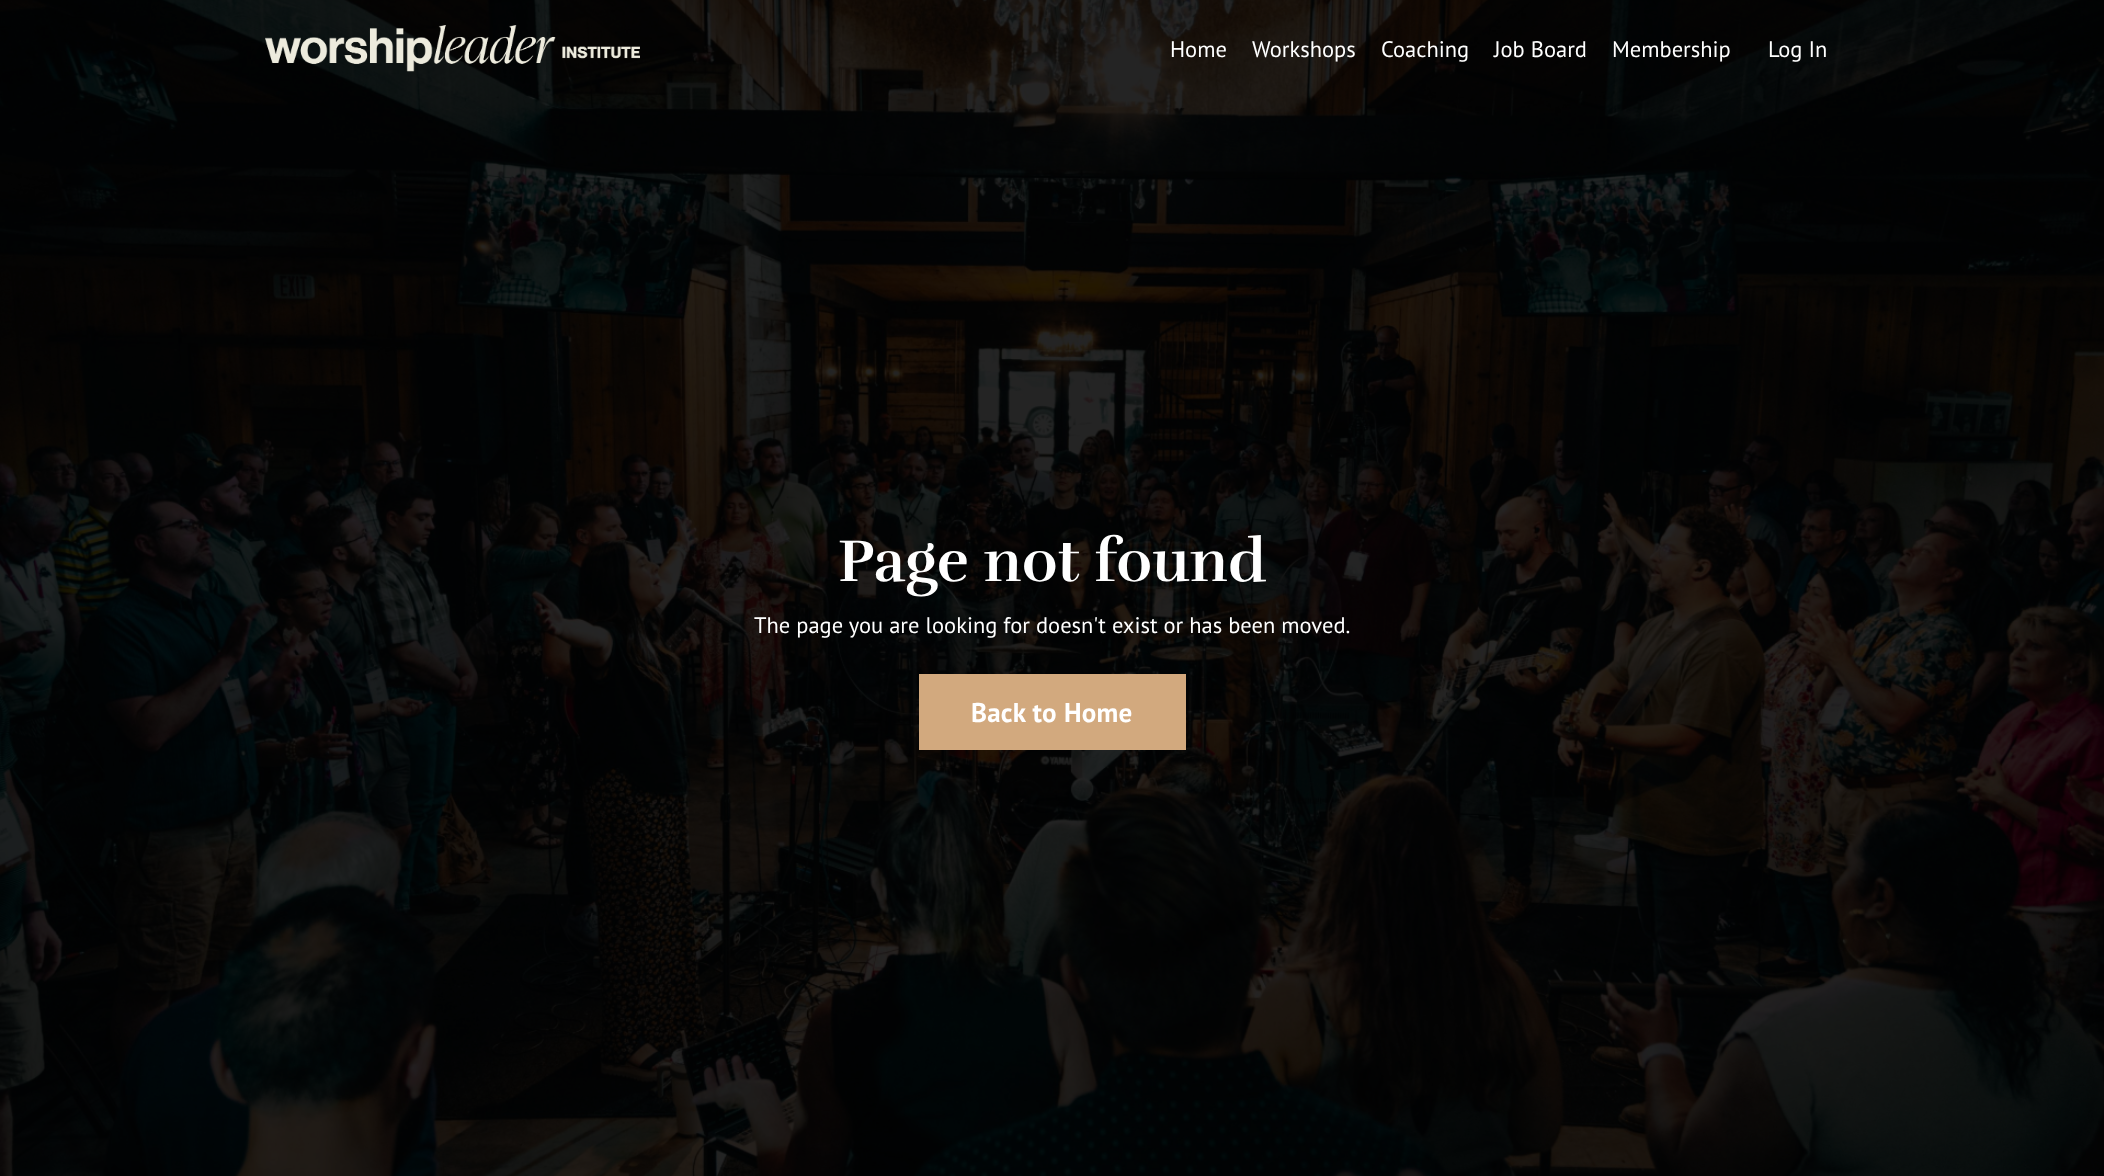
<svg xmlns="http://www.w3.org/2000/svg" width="2104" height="1176">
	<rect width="100%" height="100%" fill="#FFFFFF" />
	<image x="0" y="0" width="2104" height="1176" href="assets/img2.png" />
	<image x="265" y="25" width="375" height="47" href="assets/img1.png" />
	<g font-family="PT Sans" font-size="22.5" fill="#FFFFFF">
		<text x="1170" y="57">Home</text>
		<text x="1252" y="57">Workshops</text>
		<text x="1381" y="57">Coaching</text>
		<text x="1494" y="57">Job Board</text>
		<text x="1612" y="57">Membership</text>
		<text x="1768" y="57">Log In</text>
	</g>
	<text x="838" y="581" font-family="Rufina" font-size="60" font-weight="700" fill="#FFFFFF">Page not found</text>
	<text x="754" y="633" font-family="PT Sans" font-size="22.5" fill="#FFFFFF">The page you are looking for doesn't exist or has been moved.</text>
	<rect x="919" y="674" width="267" height="76" fill="#D2A97E" />
	<text x="971" y="722" font-family="PT Sans" font-size="27" font-weight="700" letter-spacing="0.25" fill="#FFFFFF">Back to Home</text>
</svg>
